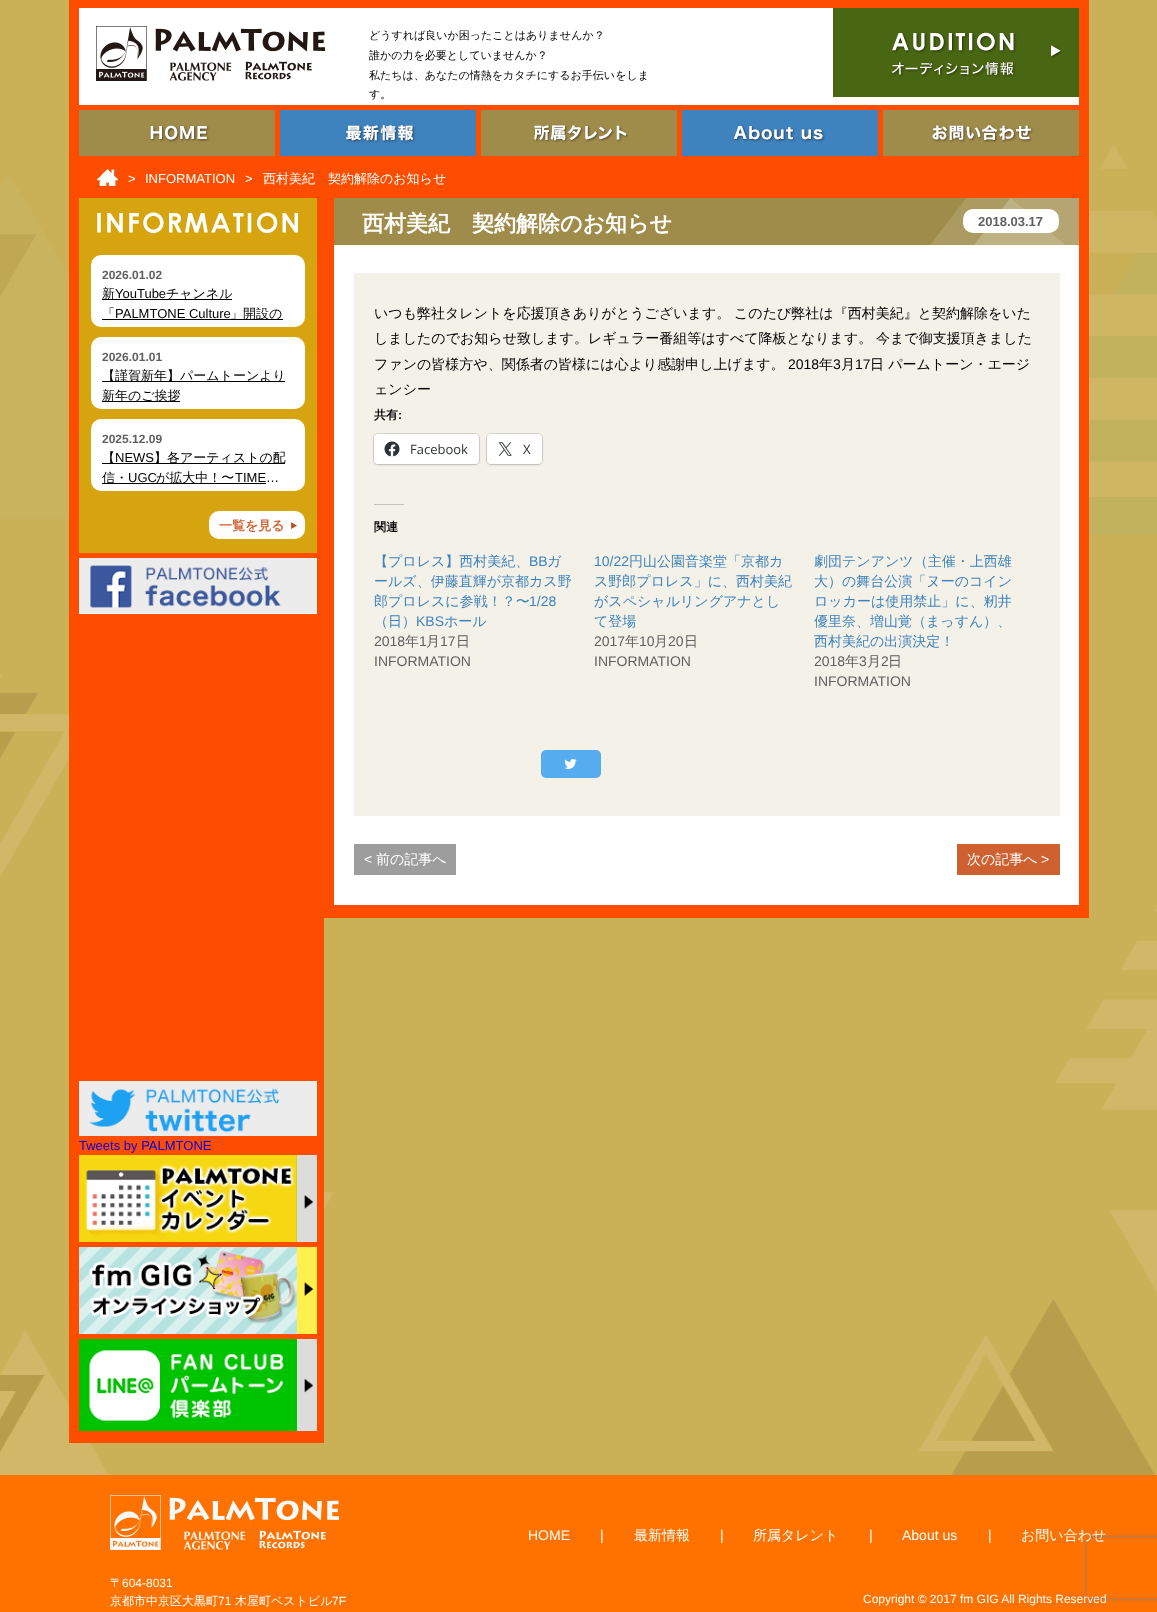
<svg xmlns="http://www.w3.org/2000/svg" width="1157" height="1612">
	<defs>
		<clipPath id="clip1"><path d="M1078 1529H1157V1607H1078ZM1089 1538H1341C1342 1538 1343 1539 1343 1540V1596C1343 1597 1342 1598 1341 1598H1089C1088 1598 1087 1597 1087 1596V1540C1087 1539 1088 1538 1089 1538Z" clip-rule="evenodd" /></clipPath>
	</defs>
	<rect width="100%" height="100%" fill="#FFFFFF" />
	<image x="0" y="0" width="1157" height="1475" href="assets/img1.png" />
	<rect x="79" y="8" width="1000" height="97" fill="#FFFFFF" />
	<rect x="79" y="0" width="1000" height="8" fill="#FF4D00" />
	<rect x="1079" y="0" width="10" height="161" fill="#FF4D00" />
	<rect x="69" y="0" width="10" height="161" fill="#FF4D00" />
	<image x="96" y="26" width="229" height="55" href="assets/img2.png" />
	<g font-family="WenQuanYi Zen Hei" font-size="11" font-weight="500" fill="#000000">
		<text x="369" y="39">どうすれば良いか困ったことはありませんか？</text>
		<text x="369" y="59">誰かの力を必要としていませんか？</text>
		<text x="369" y="79">私たちは、あなたの情熱をカタチにするお手伝いをしま</text>
		<text x="369" y="98">す。</text>
	</g>
	<image x="833" y="8" width="246" height="89" href="assets/img3.png" />
	<rect x="79" y="105" width="1000" height="5" fill="#FF4D00" />
	<rect x="79" y="156" width="1000" height="5" fill="#FF4D00" />
	<rect x="275" y="110" width="5" height="46" fill="#FF4D00" />
	<image x="79" y="110" width="196" height="46" href="assets/img4.png" />
	<rect x="476" y="110" width="5" height="46" fill="#FF4D00" />
	<image x="280" y="110" width="196" height="46" href="assets/img5.png" />
	<rect x="677" y="110" width="5" height="46" fill="#FF4D00" />
	<image x="481" y="110" width="196" height="46" href="assets/img6.png" />
	<rect x="878" y="110" width="5" height="46" fill="#FF4D00" />
	<image x="682" y="110" width="196" height="46" href="assets/img7.png" />
	<image x="883" y="110" width="196" height="46" href="assets/img8.png" />
	<rect x="69" y="161" width="1020" height="37" fill="#FF4D00" />
	<image x="97" y="169" width="21" height="17" href="assets/img9.png" />
	<g font-family="Liberation Sans" font-size="13" fill="#FFFFFF">
		<text x="128" y="183">&gt;</text>
		<text x="145" y="183">INFORMATION</text>
		<text x="245" y="183">&gt;</text>
	</g>
	<text x="263" y="183" font-family="WenQuanYi Zen Hei" font-size="13" font-weight="500" fill="#FFFFFF">西村美紀　契約解除のお知らせ</text>
	<rect x="69" y="198" width="255" height="1245" fill="#FF4D00" />
	<rect x="79" y="198" width="238" height="355" fill="#D6A40E" />
	<image x="97" y="212" width="201" height="21" href="assets/img10.png" />
	<rect x="91" y="255" width="214" height="72" rx="10" fill="#FFFFFF" />
	<text x="102" y="279" font-family="Liberation Sans" font-size="12" font-weight="700" fill="#606060">2026.01.02</text>
	<rect x="102" y="299" width="130" height="1" fill="#000000" />
	<text x="102" y="298" font-family="WenQuanYi Zen Hei" font-size="13" font-weight="500" fill="#000000">新</text>
	<text x="115" y="298" font-family="Liberation Sans" font-size="13" fill="#000000">YouTube</text>
	<g font-family="WenQuanYi Zen Hei" font-size="13" font-weight="500" fill="#000000">
		<text x="166" y="298">チャンネル</text>
		<text x="102" y="318">「</text>
	</g>
	<text x="115" y="318" font-family="Liberation Sans" font-size="13" fill="#000000">PALMTONE Culture</text>
	<rect x="102" y="319" width="181" height="1" fill="#000000" />
	<text x="230" y="318" font-family="WenQuanYi Zen Hei" font-size="13" font-weight="500" fill="#000000">」開設の</text>
	<rect x="91" y="337" width="214" height="72" rx="10" fill="#FFFFFF" />
	<text x="102" y="361" font-family="Liberation Sans" font-size="12" font-weight="700" fill="#606060">2026.01.01</text>
	<rect x="102" y="381" width="183" height="1" fill="#000000" />
	<text x="102" y="380" font-family="WenQuanYi Zen Hei" font-size="13" font-weight="500" fill="#000000">【謹賀新年】パームトーンより</text>
	<rect x="102" y="401" width="78" height="1" fill="#000000" />
	<text x="102" y="400" font-family="WenQuanYi Zen Hei" font-size="13" font-weight="500" fill="#000000">新年のご挨拶</text>
	<rect x="91" y="419" width="214" height="72" rx="10" fill="#FFFFFF" />
	<text x="102" y="443" font-family="Liberation Sans" font-size="12" font-weight="700" fill="#606060">2025.12.09</text>
	<rect x="102" y="463" width="183" height="1" fill="#000000" />
	<text x="102" y="462" font-family="WenQuanYi Zen Hei" font-size="13" font-weight="500" fill="#000000">【</text>
	<text x="115" y="462" font-family="Liberation Sans" font-size="13" fill="#000000">NEWS</text>
	<text x="154" y="462" font-family="WenQuanYi Zen Hei" font-size="13" font-weight="500" fill="#000000">】各アーティストの配</text>
	<rect x="102" y="483" width="164" height="1" fill="#000000" />
	<text x="102" y="482" font-family="WenQuanYi Zen Hei" font-size="13" font-weight="500" fill="#000000">信・</text>
	<text x="128" y="482" font-family="Liberation Sans" font-size="13" fill="#000000">UGC</text>
	<text x="156" y="482" font-family="WenQuanYi Zen Hei" font-size="13" font-weight="500" fill="#000000">が拡大中！〜</text>
	<text x="235" y="482" font-family="Liberation Sans" font-size="13" fill="#000000">TIME…</text>
	<rect x="209" y="511" width="96" height="28" rx="10" fill="#FFFFFF" />
	<text x="219" y="530" font-family="WenQuanYi Zen Hei" font-size="13" font-weight="700" fill="#CF6130">一覧を見る</text>
	<image x="291" y="522" width="6" height="7" href="assets/img11.png" />
	<image x="79" y="558" width="238" height="56" href="assets/img12.png" />
	<image x="79" y="1081" width="238" height="55" href="assets/img13.png" />
	<text x="79" y="1150" font-family="Liberation Sans" font-size="13" fill="#0000EE">Tweets by PALMTONE</text>
	<image x="79" y="1155" width="238" height="87" href="assets/img14.png" />
	<image x="79" y="1247" width="238" height="87" href="assets/img15.png" />
	<image x="79" y="1339" width="238" height="92" href="assets/img16.png" />
	<rect x="1079" y="198" width="10" height="707" fill="#FF4D00" />
	<rect x="334" y="905" width="755" height="13" fill="#FF4D00" />
	<rect x="324" y="198" width="10" height="720" fill="#FF4D00" />
	<rect x="334" y="245" width="745" height="660" fill="#FFFFFF" />
	<image x="334" y="198" width="745" height="47" href="assets/img17.png" />
	<text x="362" y="231" font-family="WenQuanYi Zen Hei" font-size="22" font-weight="700" fill="#FFFFFF">西村美紀　契約解除のお知らせ</text>
	<rect x="963" y="209" width="96" height="24" rx="10" fill="#FFFFFF" />
	<text x="978" y="226" font-family="Liberation Sans" font-size="13" font-weight="700" fill="#606060">2018.03.17</text>
	<rect x="354" y="273" width="706" height="543" fill="#F4F1E8" />
	<g font-family="WenQuanYi Zen Hei" font-size="14" font-weight="500" fill="#000000">
		<text x="374" y="318">いつも弊社タレントを応援頂きありがとうございます。</text>
		<text x="734" y="318">このたび弊社は『西村美紀』と契約解除をいた</text>
		<text x="374" y="343">しましたのでお知らせ致します。レギュラー番組等はすべて降板となります。</text>
		<text x="876" y="343">今まで御支援頂きました</text>
		<text x="374" y="369">ファンの皆様方や、関係者の皆様には心より感謝申し上げます。</text>
	</g>
	<text x="788" y="369" font-family="Liberation Sans" font-size="14" fill="#000000">2018</text>
	<text x="819" y="369" font-family="WenQuanYi Zen Hei" font-size="14" font-weight="500" fill="#000000">年</text>
	<text x="833" y="369" font-family="Liberation Sans" font-size="14" fill="#000000">3</text>
	<text x="841" y="369" font-family="WenQuanYi Zen Hei" font-size="14" font-weight="500" fill="#000000">月</text>
	<text x="855" y="369" font-family="Liberation Sans" font-size="14" fill="#000000">17</text>
	<g font-family="WenQuanYi Zen Hei" font-size="14" font-weight="500" fill="#000000">
		<text x="870" y="369">日 パームトーン・エージ</text>
		<text x="374" y="394">ェンシー</text>
	</g>
	<text x="374" y="419" font-family="WenQuanYi Zen Hei" font-size="12" font-weight="700" fill="#000000">共有</text>
	<text x="398" y="419" font-family="Liberation Sans" font-size="12" font-weight="700" fill="#000000">:</text>
	<rect x="373.5" y="433.5" width="106" height="31" rx="4.5" fill="none" stroke="#D7D4CC" />
	<rect x="374" y="435" width="105" height="30" rx="4" fill="#000000" fill-opacity="0.12" filter="blur(1px)" />
	<rect x="374" y="434" width="105" height="30" rx="4" fill="#FFFFFF" />
	<image x="384" y="441" width="16" height="16" href="assets/img18.png" />
	<text x="410" y="454" font-family="Open Sans" font-size="13" fill="#2C3338">Facebook</text>
	<rect x="486.5" y="433.5" width="56" height="31" rx="4.5" fill="none" stroke="#D7D4CC" />
	<rect x="487" y="435" width="55" height="30" rx="4" fill="#000000" fill-opacity="0.12" filter="blur(1px)" />
	<rect x="487" y="434" width="55" height="30" rx="4" fill="#FFFFFF" />
	<image x="498" y="442" width="14" height="14" href="assets/img19.png" />
	<text x="523" y="454" font-family="Open Sans" font-size="13" fill="#2C3338">X</text>
	<rect x="374" y="504" width="30" height="1" fill="#C3C1BA" />
	<text x="374" y="531" font-family="WenQuanYi Zen Hei" font-size="12" font-weight="700" fill="#000000">関連</text>
	<text x="374" y="566" font-family="WenQuanYi Zen Hei" font-size="14" font-weight="500" fill="#3E83BD">【プロレス】西村美紀、</text>
	<text x="529" y="566" font-family="Liberation Sans" font-size="14" fill="#3E83BD">BB</text>
	<g font-family="WenQuanYi Zen Hei" font-size="14" font-weight="500" fill="#3E83BD">
		<text x="547" y="566">ガ</text>
		<text x="374" y="586">ールズ、伊藤直輝が京都カス野</text>
		<text x="374" y="606">郎プロレスに参戦！？〜</text>
	</g>
	<text x="529" y="606" font-family="Liberation Sans" font-size="14" fill="#3E83BD">1/28</text>
	<text x="374" y="626" font-family="WenQuanYi Zen Hei" font-size="14" font-weight="500" fill="#3E83BD">（日）</text>
	<text x="416" y="626" font-family="Liberation Sans" font-size="14" fill="#3E83BD">KBS</text>
	<text x="444" y="626" font-family="WenQuanYi Zen Hei" font-size="14" font-weight="500" fill="#3E83BD">ホール</text>
	<text x="374" y="646" font-family="Liberation Sans" font-size="14" fill="#606060">2018</text>
	<text x="405" y="646" font-family="WenQuanYi Zen Hei" font-size="14" font-weight="500" fill="#606060">年</text>
	<text x="419" y="646" font-family="Liberation Sans" font-size="14" fill="#606060">1</text>
	<text x="426" y="646" font-family="WenQuanYi Zen Hei" font-size="14" font-weight="500" fill="#606060">月</text>
	<text x="440" y="646" font-family="Liberation Sans" font-size="14" fill="#606060">17</text>
	<text x="456" y="646" font-family="WenQuanYi Zen Hei" font-size="14" font-weight="500" fill="#606060">日</text>
	<text x="374" y="666" font-family="Liberation Sans" font-size="14" fill="#606060">INFORMATION</text>
	<text x="594" y="566" font-family="Liberation Sans" font-size="14" fill="#3E83BD">10/22</text>
	<g font-family="WenQuanYi Zen Hei" font-size="14" font-weight="500" fill="#3E83BD">
		<text x="629" y="566">円山公園音楽堂「京都カ</text>
		<text x="594" y="586">ス野郎プロレス」に、西村美紀</text>
		<text x="594" y="606">がスペシャルリングアナとし</text>
		<text x="594" y="626">て登場</text>
	</g>
	<text x="594" y="646" font-family="Liberation Sans" font-size="14" fill="#606060">2017</text>
	<text x="625" y="646" font-family="WenQuanYi Zen Hei" font-size="14" font-weight="500" fill="#606060">年</text>
	<text x="639" y="646" font-family="Liberation Sans" font-size="14" fill="#606060">10</text>
	<text x="654" y="646" font-family="WenQuanYi Zen Hei" font-size="14" font-weight="500" fill="#606060">月</text>
	<text x="668" y="646" font-family="Liberation Sans" font-size="14" fill="#606060">20</text>
	<text x="684" y="646" font-family="WenQuanYi Zen Hei" font-size="14" font-weight="500" fill="#606060">日</text>
	<text x="594" y="666" font-family="Liberation Sans" font-size="14" fill="#606060">INFORMATION</text>
	<g font-family="WenQuanYi Zen Hei" font-size="14" font-weight="500" fill="#3E83BD">
		<text x="814" y="566">劇団テンアンツ（主催・上西雄</text>
		<text x="814" y="586">大）の舞台公演「ヌーのコイン</text>
		<text x="814" y="606">ロッカーは使用禁止」に、籾井</text>
		<text x="814" y="626">優里奈、増山覚（まっすん）、</text>
		<text x="814" y="646">西村美紀の出演決定！</text>
	</g>
	<text x="814" y="666" font-family="Liberation Sans" font-size="14" fill="#606060">2018</text>
	<text x="845" y="666" font-family="WenQuanYi Zen Hei" font-size="14" font-weight="500" fill="#606060">年</text>
	<text x="859" y="666" font-family="Liberation Sans" font-size="14" fill="#606060">3</text>
	<text x="867" y="666" font-family="WenQuanYi Zen Hei" font-size="14" font-weight="500" fill="#606060">月</text>
	<text x="881" y="666" font-family="Liberation Sans" font-size="14" fill="#606060">2</text>
	<text x="888" y="666" font-family="WenQuanYi Zen Hei" font-size="14" font-weight="500" fill="#606060">日</text>
	<text x="814" y="686" font-family="Liberation Sans" font-size="14" fill="#606060">INFORMATION</text>
	<rect x="541" y="750" width="60" height="28" rx="5" fill="#55ACEE" />
	<image x="564" y="759" width="13" height="10" href="assets/img20.png" />
	<rect x="354" y="844" width="102" height="31" fill="#9D9D9D" />
	<text x="364" y="864" font-family="Liberation Sans" font-size="14" fill="#FFFFFF">&lt;</text>
	<text x="376" y="864" font-family="WenQuanYi Zen Hei" font-size="14" font-weight="500" fill="#FFFFFF">前の記事へ</text>
	<rect x="957" y="844" width="103" height="31" fill="#CF6130" />
	<text x="967" y="864" font-family="WenQuanYi Zen Hei" font-size="14" font-weight="500" fill="#FFFFFF">次の記事へ</text>
	<text x="1041" y="864" font-family="Liberation Sans" font-size="14" fill="#FFFFFF">&gt;</text>
	<rect x="0" y="1475" width="1157" height="137" fill="#FF7200" />
	<image x="110" y="1495" width="229" height="55" href="assets/img21.png" />
	<text x="110" y="1587" font-family="WenQuanYi Zen Hei" font-size="12" font-weight="500" fill="#FFFFFF">〒</text>
	<text x="122" y="1587" font-family="Liberation Sans" font-size="12" fill="#FFFFFF">604-8031</text>
	<text x="110" y="1605" font-family="WenQuanYi Zen Hei" font-size="12" font-weight="500" fill="#FFFFFF">京都市中京区大黒町</text>
	<text x="218" y="1605" font-family="Liberation Sans" font-size="12" fill="#FFFFFF">71</text>
	<text x="235" y="1605" font-family="WenQuanYi Zen Hei" font-size="12" font-weight="500" fill="#FFFFFF">木屋町ベストビル</text>
	<text x="332" y="1605" font-family="Liberation Sans" font-size="12" fill="#FFFFFF">7F</text>
	<g font-family="Liberation Sans" font-size="14" fill="#FFFFFF">
		<text x="528" y="1540">HOME</text>
		<text x="600" y="1540">|</text>
	</g>
	<text x="634" y="1540" font-family="WenQuanYi Zen Hei" font-size="14" font-weight="500" fill="#FFFFFF">最新情報</text>
	<text x="720" y="1540" font-family="Liberation Sans" font-size="14" fill="#FFFFFF">|</text>
	<text x="753" y="1540" font-family="WenQuanYi Zen Hei" font-size="14" font-weight="500" fill="#FFFFFF">所属タレント</text>
	<g font-family="Liberation Sans" font-size="14" fill="#FFFFFF">
		<text x="869" y="1540">|</text>
		<text x="902" y="1540">About us</text>
		<text x="988" y="1540">|</text>
	</g>
	<text x="1021" y="1540" font-family="WenQuanYi Zen Hei" font-size="14" font-weight="500" fill="#FFFFFF">お問い合わせ</text>
	<text x="863" y="1603" font-family="Liberation Sans" font-size="12" fill="#FFFFFF">Copyright © 2017 fm GIG All Rights Reserved</text>
	<g clip-path="url(#clip1)">
		<rect x="1087" y="1538" width="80" height="60" rx="2" fill="#808080" filter="blur(2.5px)" />
	</g>
</svg>
